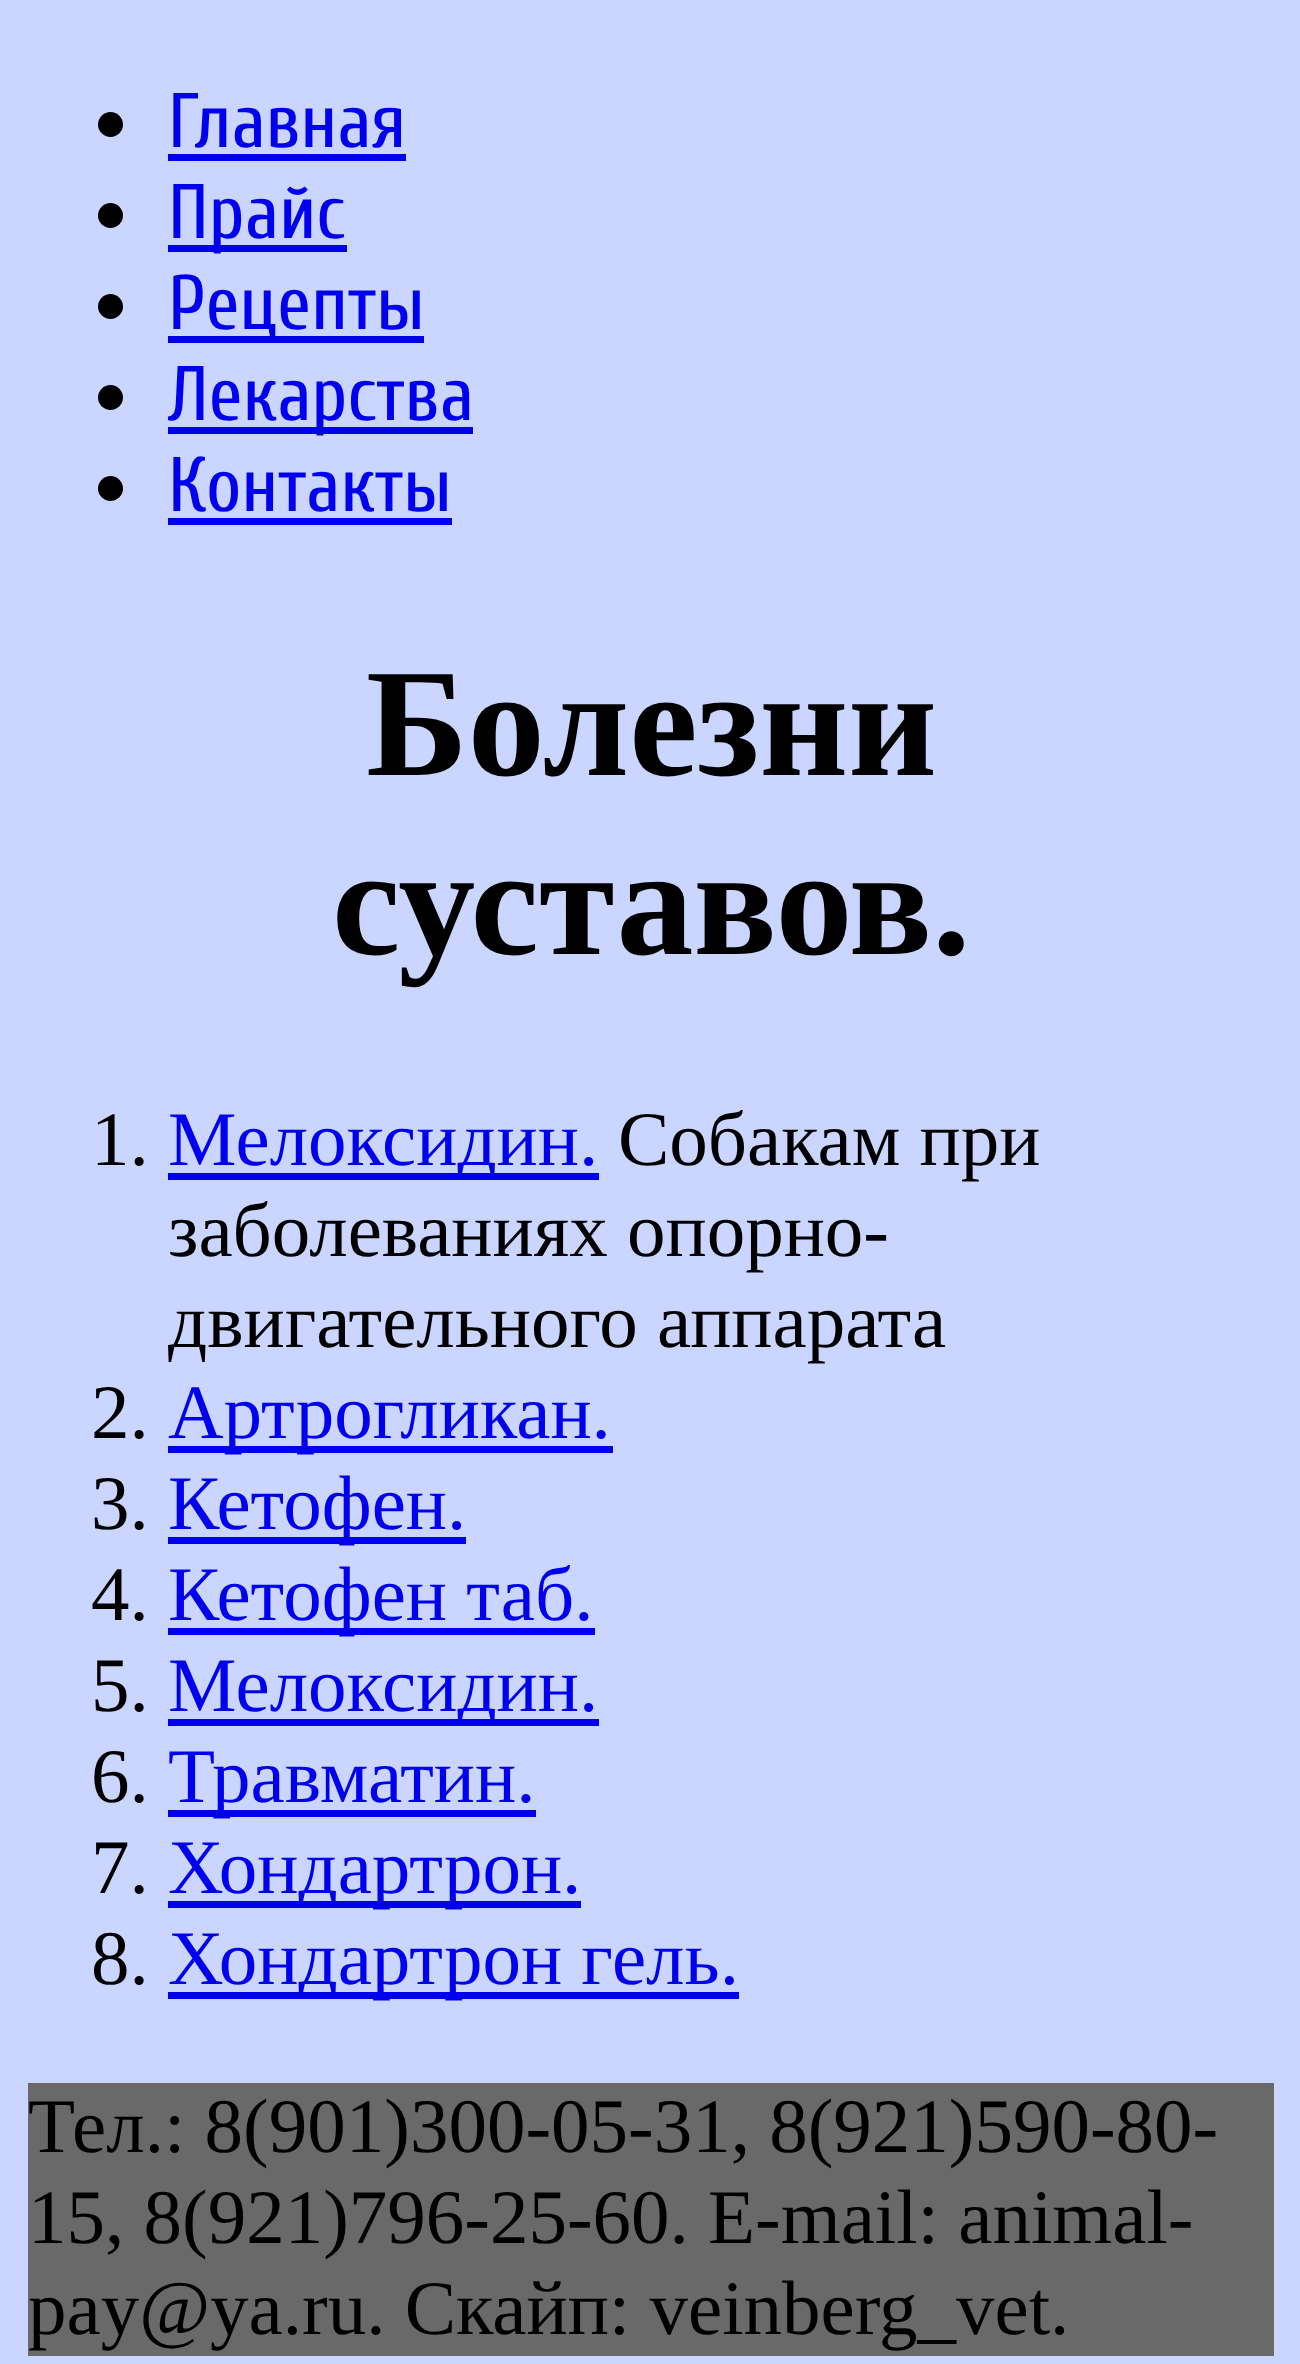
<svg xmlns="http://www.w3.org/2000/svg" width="1300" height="2364">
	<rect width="100%" height="100%" fill="#CAD6FF" />
	<circle cx="110.5" cy="124.5" r="12.5" fill="#000000" />
	<text x="168" y="147" font-family="Cuprum" font-size="77" fill="#0000EE">Главная</text>
	<rect x="168" y="154" width="238" height="7" fill="#0000EE" />
	<circle cx="110.5" cy="215.5" r="12.5" fill="#000000" />
	<rect x="168" y="245" width="179" height="7" fill="#0000EE" />
	<text x="168" y="238" font-family="Cuprum" font-size="77" fill="#0000EE">Прайс</text>
	<circle cx="110.5" cy="306.5" r="12.5" fill="#000000" />
	<rect x="168" y="336" width="256" height="7" fill="#0000EE" />
	<text x="168" y="329" font-family="Cuprum" font-size="77" fill="#0000EE">Рецепты</text>
	<circle cx="110.5" cy="397.5" r="12.5" fill="#000000" />
	<rect x="168" y="427" width="305" height="7" fill="#0000EE" />
	<text x="168" y="420" font-family="Cuprum" font-size="77" fill="#0000EE">Лекарства</text>
	<circle cx="110.5" cy="488.5" r="12.5" fill="#000000" />
	<text x="168" y="511" font-family="Cuprum" font-size="77" fill="#0000EE">Контакты</text>
	<rect x="168" y="518" width="284" height="7" fill="#0000EE" />
	<g font-family="Liberation Serif" font-size="154" font-weight="700" fill="#000000">
		<text x="366" y="775">Болезни</text>
		<text x="332" y="954">суставов.</text>
	</g>
	<text x="91" y="1165" font-family="Liberation Serif" font-size="77" fill="#000000">1.</text>
	<rect x="168" y="1173" width="431" height="7" fill="#0000EE" />
	<text x="168" y="1165" font-family="Liberation Serif" font-size="77" fill="#0000EE">Мелоксидин.</text>
	<g font-family="Liberation Serif" font-size="77" fill="#000000">
		<text x="618" y="1165">Собакам при</text>
		<text x="168" y="1256">заболеваниях опорно-</text>
		<text x="168" y="1347">двигательного аппарата</text>
		<text x="91" y="1438">2.</text>
	</g>
	<rect x="168" y="1446" width="445" height="7" fill="#0000EE" />
	<text x="168" y="1438" font-family="Liberation Serif" font-size="77" fill="#0000EE">Артрогликан.</text>
	<text x="91" y="1529" font-family="Liberation Serif" font-size="77" fill="#000000">3.</text>
	<rect x="168" y="1537" width="298" height="7" fill="#0000EE" />
	<text x="168" y="1529" font-family="Liberation Serif" font-size="77" fill="#0000EE">Кетофен.</text>
	<text x="91" y="1620" font-family="Liberation Serif" font-size="77" fill="#000000">4.</text>
	<rect x="168" y="1628" width="427" height="7" fill="#0000EE" />
	<text x="168" y="1620" font-family="Liberation Serif" font-size="77" fill="#0000EE">Кетофен таб.</text>
	<text x="91" y="1711" font-family="Liberation Serif" font-size="77" fill="#000000">5.</text>
	<rect x="168" y="1719" width="431" height="7" fill="#0000EE" />
	<text x="168" y="1711" font-family="Liberation Serif" font-size="77" fill="#0000EE">Мелоксидин.</text>
	<text x="91" y="1802" font-family="Liberation Serif" font-size="77" fill="#000000">6.</text>
	<rect x="168" y="1810" width="368" height="7" fill="#0000EE" />
	<text x="168" y="1802" font-family="Liberation Serif" font-size="77" fill="#0000EE">Травматин.</text>
	<text x="91" y="1893" font-family="Liberation Serif" font-size="77" fill="#000000">7.</text>
	<rect x="168" y="1901" width="413" height="7" fill="#0000EE" />
	<text x="168" y="1893" font-family="Liberation Serif" font-size="77" fill="#0000EE">Хондартрон.</text>
	<text x="91" y="1984" font-family="Liberation Serif" font-size="77" fill="#000000">8.</text>
	<rect x="168" y="1992" width="571" height="7" fill="#0000EE" />
	<text x="168" y="1984" font-family="Liberation Serif" font-size="77" fill="#0000EE">Хондартрон гель.</text>
	<rect x="28" y="2083" width="1246" height="273" fill="#696969" />
	<g font-family="Liberation Serif" font-size="77" fill="#000000">
		<text x="28" y="2152">Тел.: 8(901)300-05-31, 8(921)590-80-</text>
		<text x="28" y="2243">15, 8(921)796-25-60. E-mail: animal-</text>
		<text x="28" y="2334">pay@ya.ru. Скайп: veinberg_vet.</text>
	</g>
</svg>
